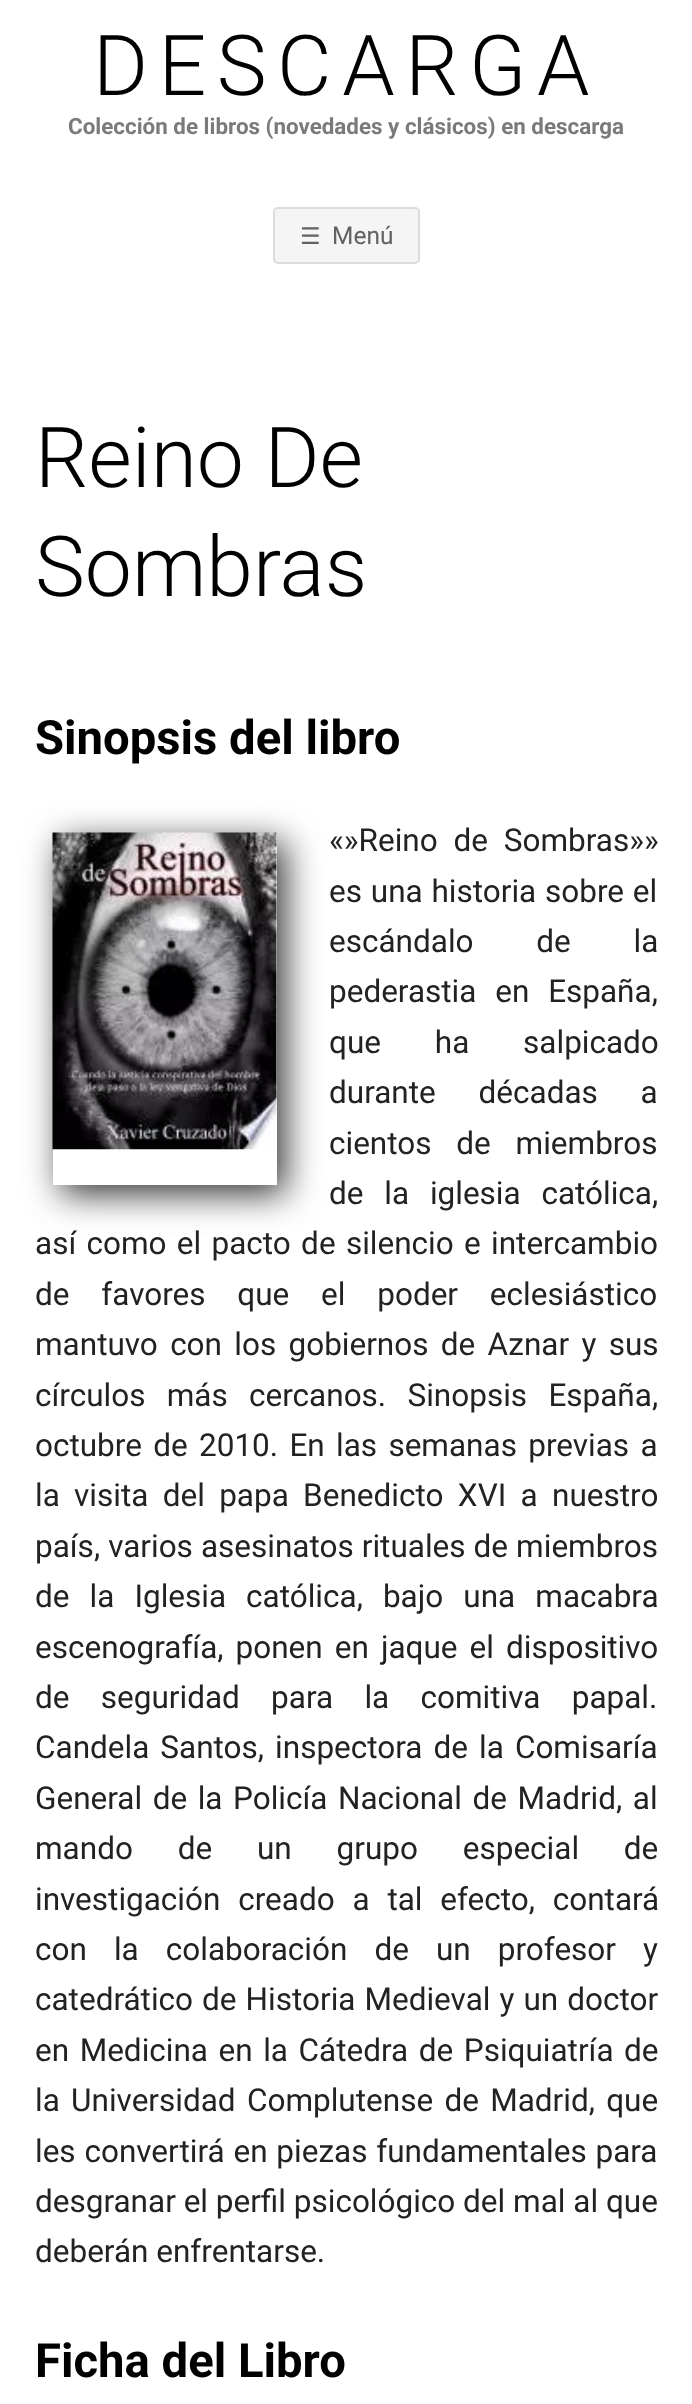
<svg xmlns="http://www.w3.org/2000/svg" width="692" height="2404">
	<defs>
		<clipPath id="clip1"><path d="M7 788H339V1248H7ZM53 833H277V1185H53Z" clip-rule="evenodd" /></clipPath>
	</defs>
	<rect width="100%" height="100%" fill="#FFFFFF" />
	<text x="93" y="95" font-family="Roboto" font-size="84" font-weight="300" letter-spacing="10.5" fill="#000000">DESCARGA</text>
	<text x="68" y="134" font-family="Roboto" font-size="22.4" font-weight="700" fill="#7A7A7A">Colección de libros (novedades y clásicos) en descarga</text>
	<rect x="273" y="207" width="147" height="57" rx="5" fill="#F5F5F5" />
	<rect x="274" y="208" width="145" height="55" rx="4" fill="none" stroke="#000000" stroke-opacity="0.1" stroke-width="2" />
	<text x="300" y="244" font-family="DejaVu Sans" font-size="23" fill="#626262">☰</text>
	<text x="332" y="244" font-family="Roboto" font-size="24.5" fill="#626262">Menú</text>
	<g font-family="Roboto" font-size="84" font-weight="300" fill="#000000">
		<text x="35" y="487">Reino De</text>
		<text x="35" y="596">Sombras</text>
	</g>
	<text x="35" y="754" font-family="Roboto" font-size="47.25" font-weight="700" fill="#000000">Sinopsis del libro</text>
	<g clip-path="url(#clip1)">
		<rect x="61" y="842" width="224" height="352" fill="#333333" filter="blur(17.5px)" />
	</g>
	<image x="52" y="832" width="225" height="318" href="assets/img1.png" />
	<g font-family="Roboto" font-size="31.5" fill="#222222">
		<text x="329" y="851" word-spacing="8">«»Reino de Sombras»»</text>
		<text x="329" y="902" word-spacing="1">es una historia sobre el</text>
		<text x="329" y="952" word-spacing="55">escándalo de la</text>
		<text x="329" y="1002" word-spacing="11">pederastia en España,</text>
		<text x="329" y="1053" word-spacing="46">que ha salpicado</text>
		<text x="329" y="1103" word-spacing="35">durante décadas a</text>
		<text x="329" y="1154" word-spacing="17">cientos de miembros</text>
		<text x="329" y="1204" word-spacing="13">de la iglesia católica,</text>
		<text x="35" y="1254" word-spacing="2.5">así como el pacto de silencio e intercambio</text>
		<text x="35" y="1305" word-spacing="24">de favores que el poder eclesiástico</text>
		<text x="35" y="1355" word-spacing="4.5">mantuvo con los gobiernos de Aznar y sus</text>
		<text x="35" y="1406" word-spacing="13.5">círculos más cercanos. Sinopsis España,</text>
		<text x="35" y="1456" word-spacing="3.5">octubre de 2010. En las semanas previas a</text>
		<text x="35" y="1506" word-spacing="6.5">la visita del papa Benedicto XVI a nuestro</text>
		<text x="35" y="1557" word-spacing="0.25">país, varios asesinatos rituales de miembros</text>
		<text x="35" y="1607" word-spacing="12.25">de la Iglesia católica, bajo una macabra</text>
		<text x="35" y="1658" word-spacing="4.25">escenografía, ponen en jaque el dispositivo</text>
		<text x="35" y="1708" word-spacing="23.5">de seguridad para la comitiva papal.</text>
		<text x="35" y="1758" word-spacing="3.25">Candela Santos, inspectora de la Comisaría</text>
		<text x="35" y="1809" word-spacing="2.75">General de la Policía Nacional de Madrid, al</text>
		<text x="35" y="1859" word-spacing="37">mando de un grupo especial de</text>
		<text x="35" y="1910" word-spacing="10">investigación creado a tal efecto, contará</text>
		<text x="35" y="1960" word-spacing="19.25">con la colaboración de un profesor y</text>
		<text x="35" y="2010" word-spacing="1.25">catedrático de Historia Medieval y un doctor</text>
		<text x="35" y="2061" word-spacing="2.75">en Medicina en la Cátedra de Psiquiatría de</text>
		<text x="35" y="2111" word-spacing="3.5">la Universidad Complutense de Madrid, que</text>
		<text x="35" y="2162" word-spacing="1">les convertirá en piezas fundamentales para</text>
		<text x="35" y="2212">desgranar el perfil psicológico del mal al que</text>
		<text x="35" y="2262">deberán enfrentarse.</text>
	</g>
	<text x="35" y="2377" font-family="Roboto" font-size="47.25" font-weight="700" fill="#000000">Ficha del Libro</text>
</svg>
